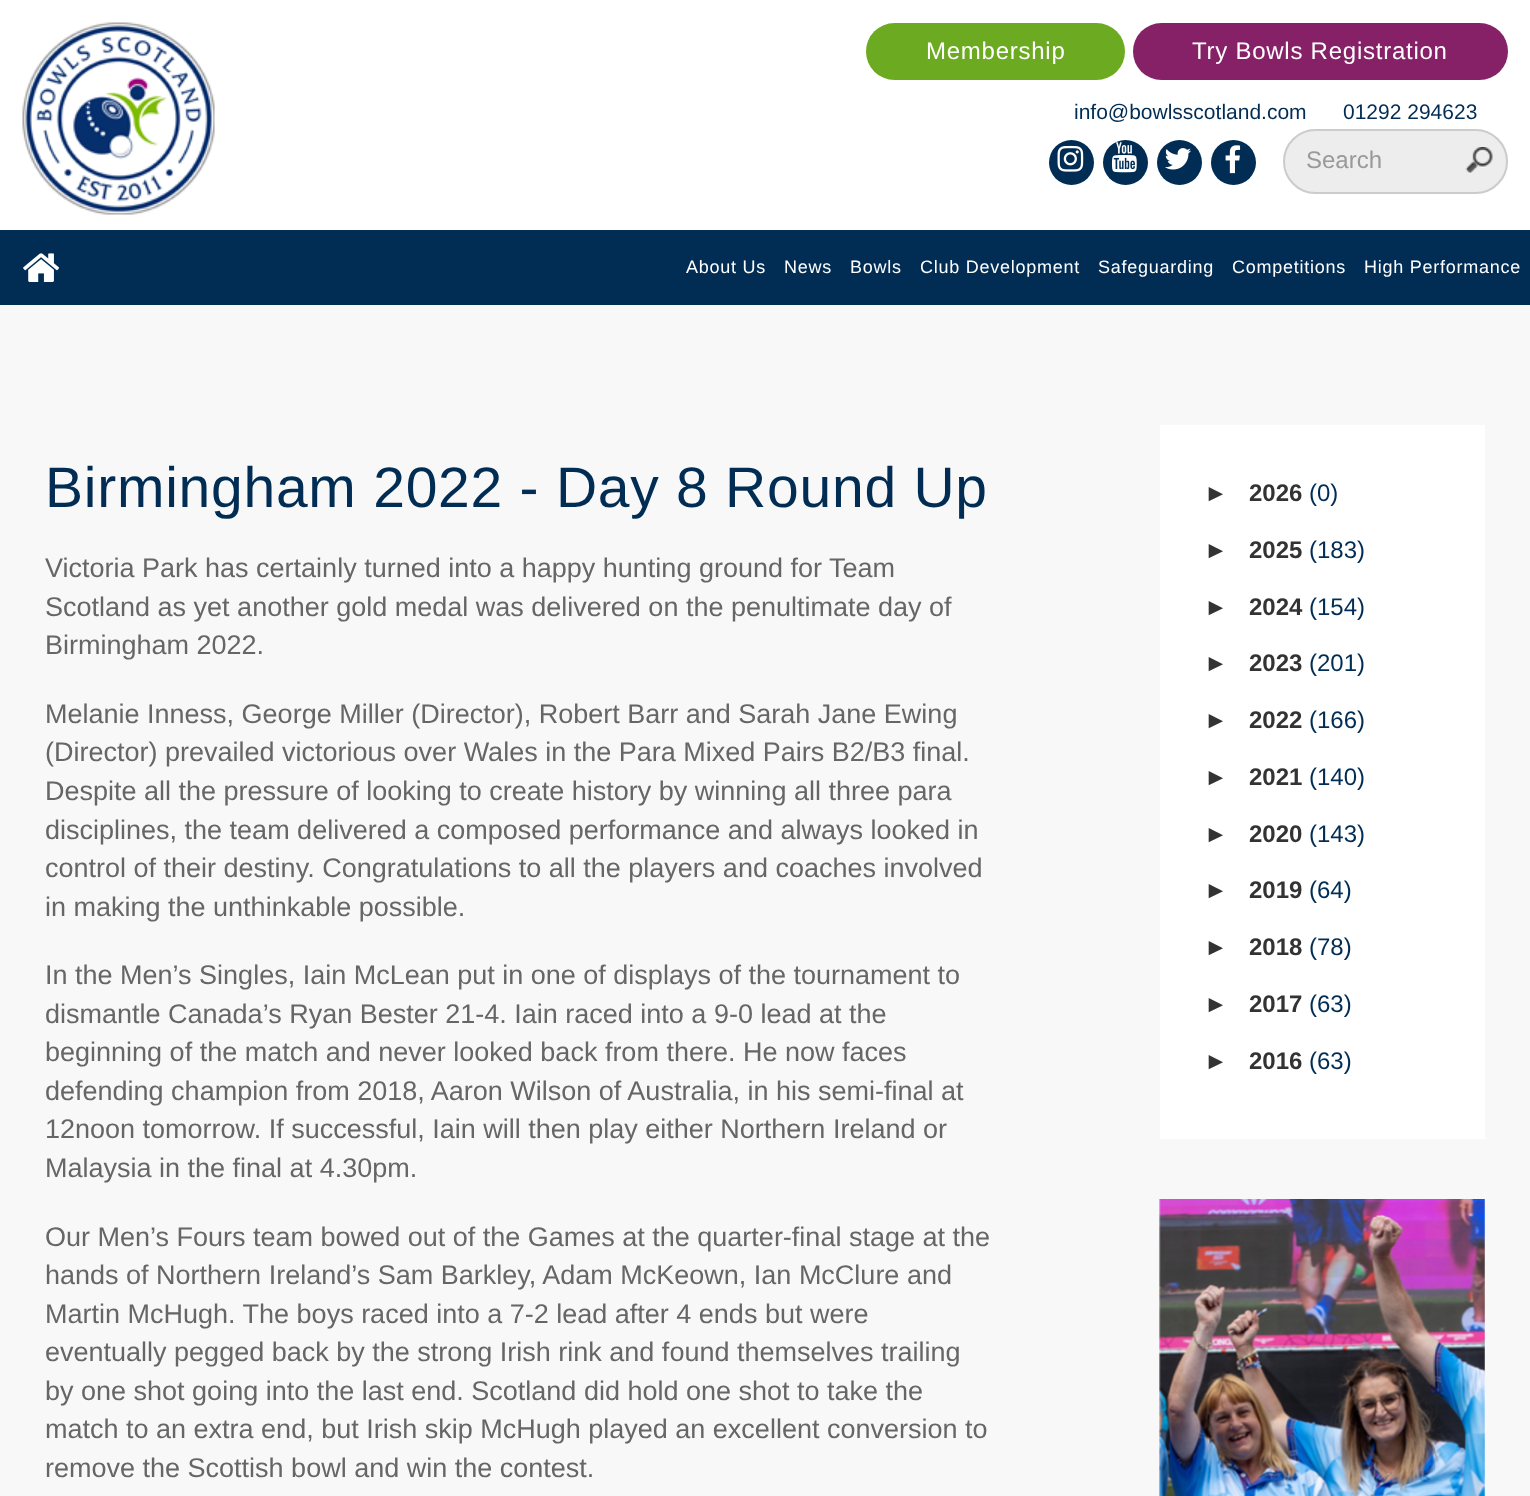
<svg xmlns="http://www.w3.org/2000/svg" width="1530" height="1496">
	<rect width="100%" height="100%" fill="#FFFFFF" />
	<image x="22" y="22" width="193" height="193" href="assets/img1.png" />
	<rect x="866" y="23" width="259" height="57" rx="28.5" fill="#6CAA22" />
	<text x="926" y="59" font-family="Liberation Sans" font-size="24" letter-spacing="0.75" fill="#FFFFFF">Membership</text>
	<rect x="1133" y="23" width="375" height="57" rx="28.5" fill="#862067" />
	<text x="1192" y="59" font-family="Liberation Sans" font-size="24" letter-spacing="0.75" fill="#FFFFFF">Try Bowls Registration</text>
	<g font-family="Liberation Sans" font-size="21" fill="#012D54">
		<text x="1074" y="119">info@bowlsscotland.com</text>
		<text x="1343" y="119">01292 294623</text>
	</g>
	<circle cx="1071.5" cy="162.5" r="22.5" fill="#012D54" />
	<image x="1057" y="145" width="27" height="27" href="assets/img2.png" />
	<circle cx="1125.5" cy="162.5" r="22.5" fill="#012D54" />
	<image x="1111" y="142" width="26" height="31" href="assets/img3.png" />
	<circle cx="1179.5" cy="162.5" r="22.5" fill="#012D54" />
	<image x="1165" y="148" width="26" height="22" href="assets/img4.png" />
	<circle cx="1233.5" cy="162.5" r="22.5" fill="#012D54" />
	<image x="1225" y="145" width="16" height="29" href="assets/img5.png" />
	<rect x="1283" y="129" width="225" height="65" rx="32.5" fill="#EDEDED" />
	<image x="1465" y="147" width="28" height="27" href="assets/img6.png" />
	<rect x="1284" y="130" width="223" height="63" rx="31.5" fill="none" stroke="#CCCCCC" stroke-width="2" />
	<text x="1306" y="168" font-family="Liberation Sans" font-size="24" fill="#999999">Search</text>
	<rect x="0" y="230" width="1530" height="75" fill="#012D54" />
	<image x="23" y="253" width="36" height="29" href="assets/img7.png" />
	<g font-family="Liberation Sans" font-size="18" letter-spacing="0.75" fill="#FFFFFF">
		<text x="686" y="273">About Us</text>
		<text x="784" y="273">News</text>
		<text x="850" y="273">Bowls</text>
		<text x="920" y="273">Club Development</text>
		<text x="1098" y="273">Safeguarding</text>
		<text x="1232" y="273">Competitions</text>
		<text x="1364" y="273">High Performance</text>
	</g>
	<rect x="0" y="305" width="1530" height="1191" fill="#F8F8F8" />
	<text x="45" y="507" font-family="Liberation Sans" font-size="57" letter-spacing="0.75" fill="#012D54">Birmingham 2022 - Day 8 Round Up</text>
	<g font-family="Liberation Sans" font-size="27" fill="#666666">
		<text x="45" y="577">Victoria Park has certainly turned into a happy hunting ground for Team</text>
		<text x="45" y="616">Scotland as yet another gold medal was delivered on the penultimate day of</text>
		<text x="45" y="654">Birmingham 2022.</text>
		<text x="45" y="723">Melanie Inness, George Miller (Director), Robert Barr and Sarah Jane Ewing</text>
		<text x="45" y="761">(Director) prevailed victorious over Wales in the Para Mixed Pairs B2/B3 final.</text>
		<text x="45" y="800">Despite all the pressure of looking to create history by winning all three para</text>
		<text x="45" y="839">disciplines, the team delivered a composed performance and always looked in</text>
		<text x="45" y="877">control of their destiny. Congratulations to all the players and coaches involved</text>
		<text x="45" y="916">in making the unthinkable possible.</text>
		<text x="45" y="984">In the Men’s Singles, Iain McLean put in one of displays of the tournament to</text>
		<text x="45" y="1023">dismantle Canada’s Ryan Bester 21-4. Iain raced into a 9-0 lead at the</text>
		<text x="45" y="1061">beginning of the match and never looked back from there. He now faces</text>
		<text x="45" y="1100">defending champion from 2018, Aaron Wilson of Australia, in his semi-final at</text>
		<text x="45" y="1138">12noon tomorrow. If successful, Iain will then play either Northern Ireland or</text>
		<text x="45" y="1177">Malaysia in the final at 4.30pm.</text>
		<text x="45" y="1246">Our Men’s Fours team bowed out of the Games at the quarter-final stage at the</text>
		<text x="45" y="1284">hands of Northern Ireland’s Sam Barkley, Adam McKeown, Ian McClure and</text>
		<text x="45" y="1323">Martin McHugh. The boys raced into a 7-2 lead after 4 ends but were</text>
		<text x="45" y="1361">eventually pegged back by the strong Irish rink and found themselves trailing</text>
		<text x="45" y="1400">by one shot going into the last end. Scotland did hold one shot to take the</text>
		<text x="45" y="1438">match to an extra end, but Irish skip McHugh played an excellent conversion to</text>
		<text x="45" y="1477">remove the Scottish bowl and win the contest.</text>
	</g>
	<rect x="1160" y="425" width="325" height="714" fill="#FFFFFF" />
	<text x="1204" y="501" font-family="Liberation Sans" font-size="24" fill="#333333">►</text>
	<text x="1249" y="501" font-family="Liberation Sans" font-size="24" font-weight="700" fill="#333333">2026</text>
	<text x="1309" y="501" font-family="Liberation Sans" font-size="24" fill="#012D54">(0)</text>
	<text x="1204" y="558" font-family="Liberation Sans" font-size="24" fill="#333333">►</text>
	<text x="1249" y="558" font-family="Liberation Sans" font-size="24" font-weight="700" fill="#333333">2025</text>
	<text x="1309" y="558" font-family="Liberation Sans" font-size="24" fill="#012D54">(183)</text>
	<text x="1204" y="615" font-family="Liberation Sans" font-size="24" fill="#333333">►</text>
	<text x="1249" y="615" font-family="Liberation Sans" font-size="24" font-weight="700" fill="#333333">2024</text>
	<text x="1309" y="615" font-family="Liberation Sans" font-size="24" fill="#012D54">(154)</text>
	<text x="1204" y="671" font-family="Liberation Sans" font-size="24" fill="#333333">►</text>
	<text x="1249" y="671" font-family="Liberation Sans" font-size="24" font-weight="700" fill="#333333">2023</text>
	<text x="1309" y="671" font-family="Liberation Sans" font-size="24" fill="#012D54">(201)</text>
	<text x="1204" y="728" font-family="Liberation Sans" font-size="24" fill="#333333">►</text>
	<text x="1249" y="728" font-family="Liberation Sans" font-size="24" font-weight="700" fill="#333333">2022</text>
	<text x="1309" y="728" font-family="Liberation Sans" font-size="24" fill="#012D54">(166)</text>
	<text x="1204" y="785" font-family="Liberation Sans" font-size="24" fill="#333333">►</text>
	<text x="1249" y="785" font-family="Liberation Sans" font-size="24" font-weight="700" fill="#333333">2021</text>
	<text x="1309" y="785" font-family="Liberation Sans" font-size="24" fill="#012D54">(140)</text>
	<text x="1204" y="842" font-family="Liberation Sans" font-size="24" fill="#333333">►</text>
	<text x="1249" y="842" font-family="Liberation Sans" font-size="24" font-weight="700" fill="#333333">2020</text>
	<text x="1309" y="842" font-family="Liberation Sans" font-size="24" fill="#012D54">(143)</text>
	<text x="1204" y="898" font-family="Liberation Sans" font-size="24" fill="#333333">►</text>
	<text x="1249" y="898" font-family="Liberation Sans" font-size="24" font-weight="700" fill="#333333">2019</text>
	<text x="1309" y="898" font-family="Liberation Sans" font-size="24" fill="#012D54">(64)</text>
	<text x="1204" y="955" font-family="Liberation Sans" font-size="24" fill="#333333">►</text>
	<text x="1249" y="955" font-family="Liberation Sans" font-size="24" font-weight="700" fill="#333333">2018</text>
	<text x="1309" y="955" font-family="Liberation Sans" font-size="24" fill="#012D54">(78)</text>
	<text x="1204" y="1012" font-family="Liberation Sans" font-size="24" fill="#333333">►</text>
	<text x="1249" y="1012" font-family="Liberation Sans" font-size="24" font-weight="700" fill="#333333">2017</text>
	<text x="1309" y="1012" font-family="Liberation Sans" font-size="24" fill="#012D54">(63)</text>
	<text x="1204" y="1069" font-family="Liberation Sans" font-size="24" fill="#333333">►</text>
	<text x="1249" y="1069" font-family="Liberation Sans" font-size="24" font-weight="700" fill="#333333">2016</text>
	<text x="1309" y="1069" font-family="Liberation Sans" font-size="24" fill="#012D54">(63)</text>
	<image x="1159" y="1199" width="326" height="297" href="assets/img8.png" />
</svg>
